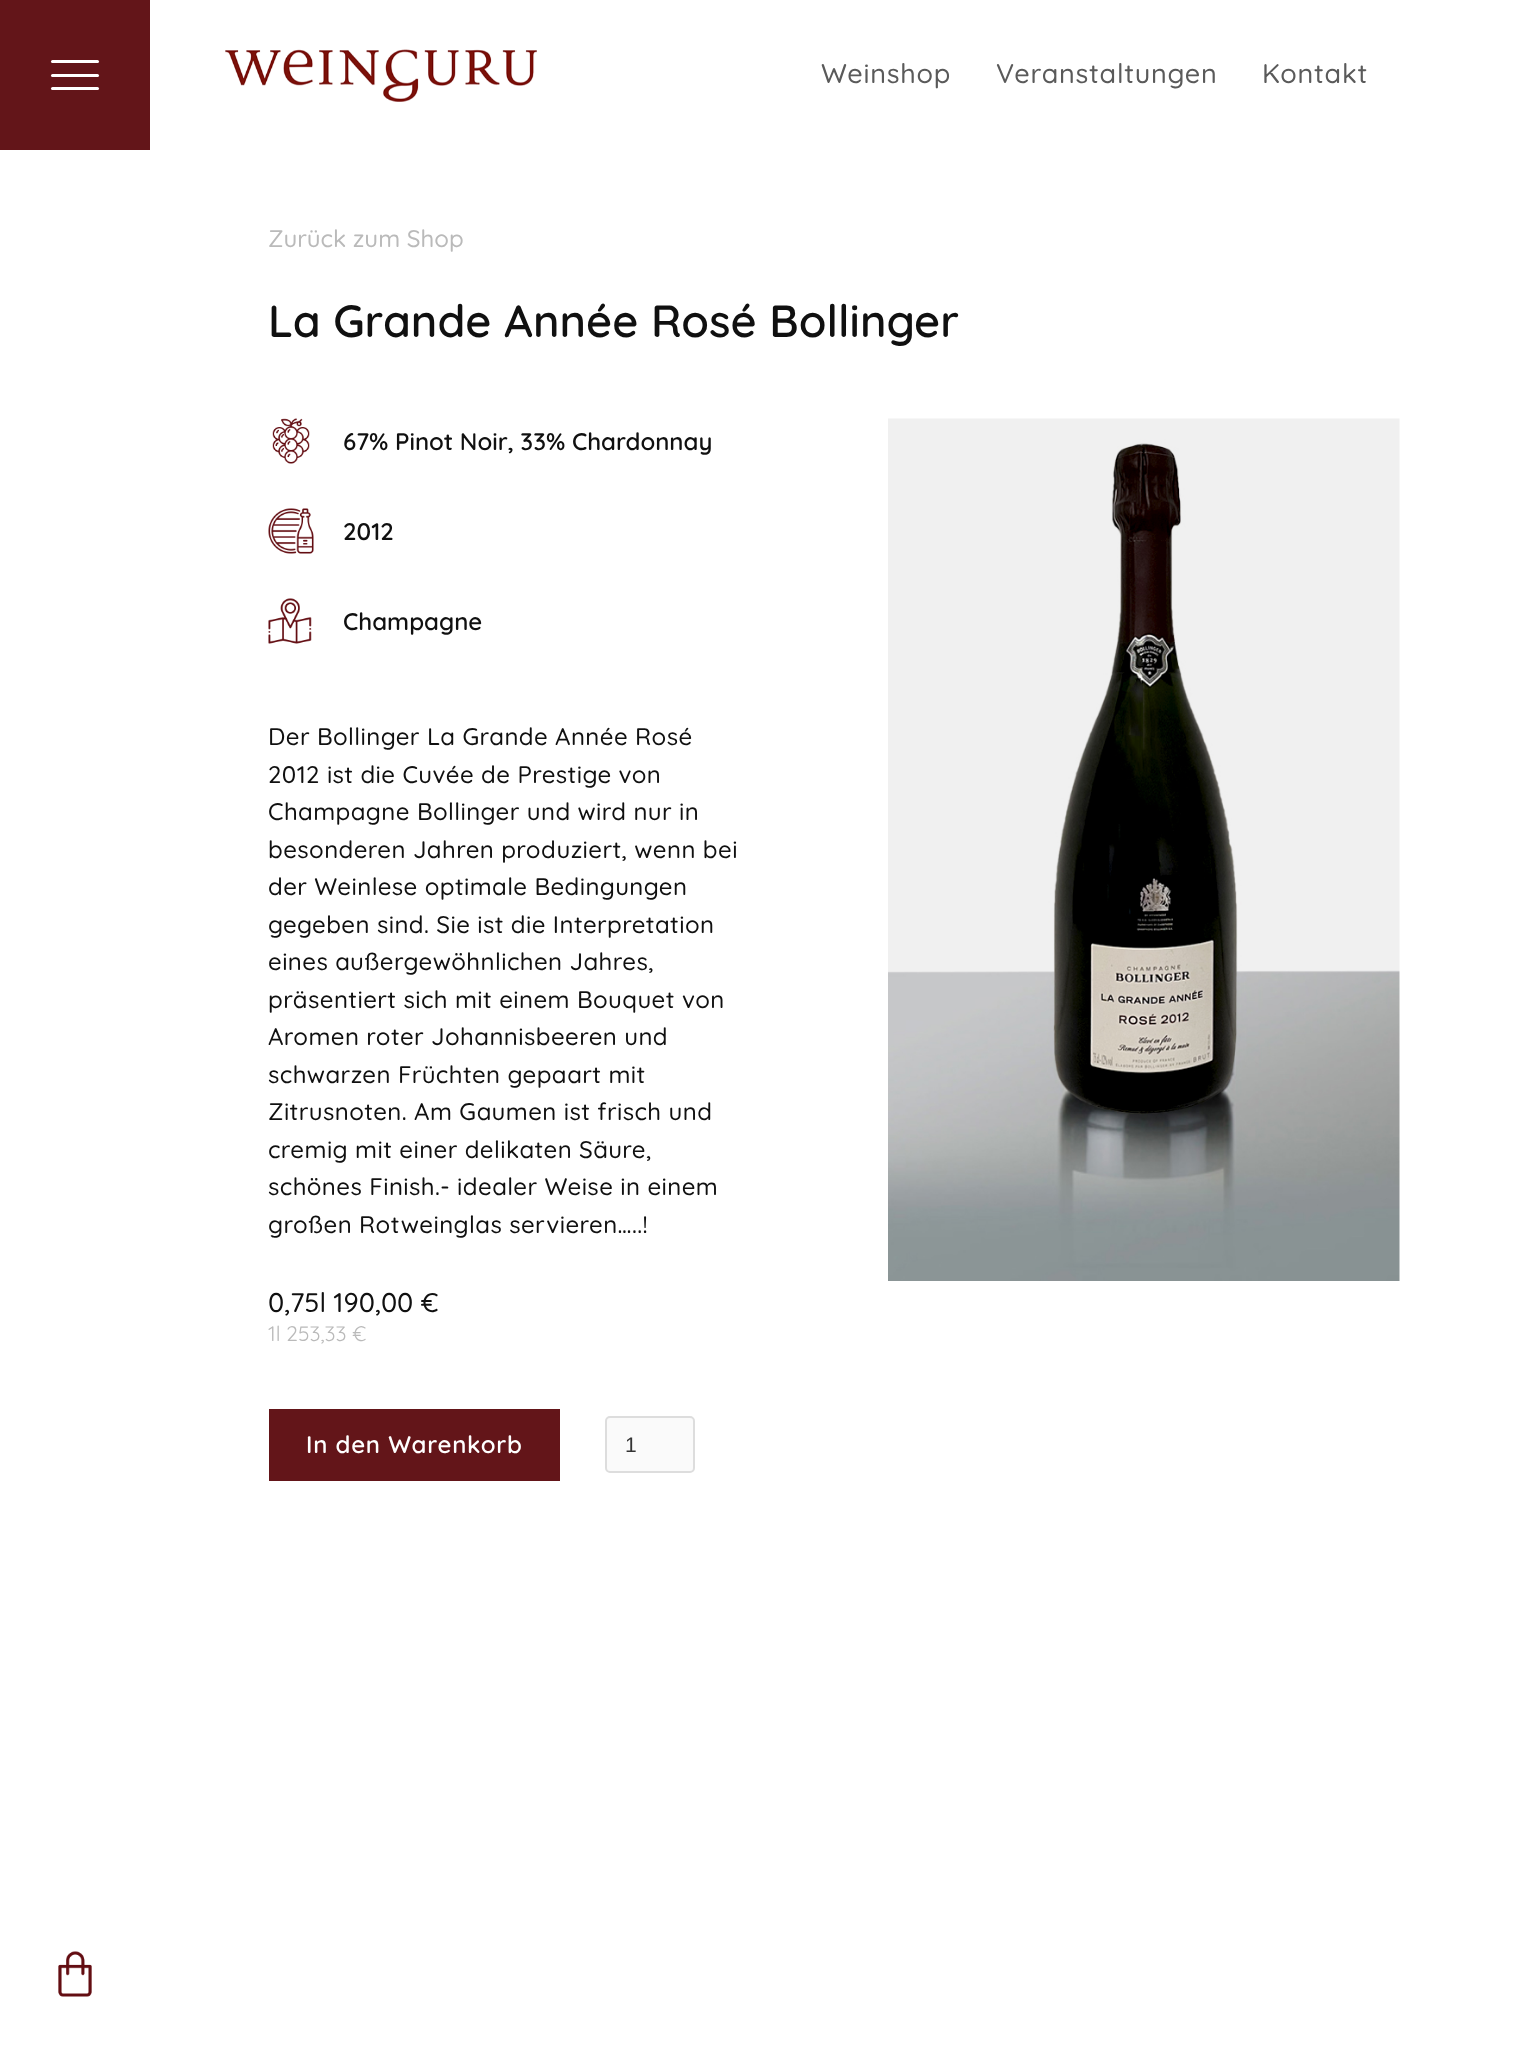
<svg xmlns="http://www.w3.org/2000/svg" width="1518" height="2049">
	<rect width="100%" height="100%" fill="#FFFFFF" />
	<rect x="0" y="0" width="150" height="150" fill="#631519" />
	<rect x="51" y="60" width="48" height="3" rx="1.5" fill="#FFFFFF" />
	<rect x="51" y="74" width="48" height="3" rx="1.5" fill="#FFFFFF" />
	<rect x="51" y="87" width="48" height="3" rx="1.5" fill="#FFFFFF" />
	<image x="58" y="1951" width="34" height="46" href="assets/img1.png" />
	<image x="225" y="49" width="312" height="53" href="assets/img2.png" />
	<g font-family="Quicksand" font-size="27" font-weight="500" letter-spacing="0.75" fill="#5A5A5A">
		<text x="821" y="83">Weinshop</text>
		<text x="996" y="83">Veranstaltungen</text>
		<text x="1262" y="83">Kontakt</text>
	</g>
	<text x="268" y="247" font-family="Quicksand" font-size="24" font-weight="500" fill="#BABABA">Zurück zum Shop</text>
	<text x="268" y="337" font-family="Quicksand" font-size="45" font-weight="600" fill="#101010">La Grande Année Rosé Bollinger</text>
	<image x="272" y="418" width="38" height="46" href="assets/img3.png" />
	<text x="343" y="450" font-family="Quicksand" font-size="24" font-weight="600" fill="#101010">67% Pinot Noir, 33% Chardonnay</text>
	<image x="268" y="508" width="46" height="46" href="assets/img4.png" />
	<text x="343" y="540" font-family="Quicksand" font-size="24" font-weight="600" fill="#101010">2012</text>
	<image x="268" y="598" width="44" height="46" href="assets/img5.png" />
	<text x="343" y="630" font-family="Quicksand" font-size="24" font-weight="600" fill="#101010">Champagne</text>
	<g font-family="Quicksand" font-size="24" font-weight="500" letter-spacing="0.4" fill="#101010">
		<text x="268" y="745">Der Bollinger La Grande Année Rosé</text>
		<text x="268" y="783">2012 ist die Cuvée de Prestige von</text>
		<text x="268" y="820">Champagne Bollinger und wird nur in</text>
		<text x="268" y="858">besonderen Jahren produziert, wenn bei</text>
		<text x="268" y="895">der Weinlese optimale Bedingungen</text>
		<text x="268" y="933">gegeben sind. Sie ist die Interpretation</text>
		<text x="268" y="970">eines außergewöhnlichen Jahres,</text>
		<text x="268" y="1008">präsentiert sich mit einem Bouquet von</text>
		<text x="268" y="1045">Aromen roter Johannisbeeren und</text>
		<text x="268" y="1083">schwarzen Früchten gepaart mit</text>
		<text x="268" y="1120">Zitrusnoten. Am Gaumen ist frisch und</text>
		<text x="268" y="1158">cremig mit einer delikaten Säure,</text>
		<text x="268" y="1195">schönes Finish.- idealer Weise in einem</text>
		<text x="268" y="1233">großen Rotweinglas servieren…..!</text>
	</g>
	<text x="268" y="1312" font-family="Quicksand" font-size="27" font-weight="500" fill="#101010">0,75l 190,00 €</text>
	<text x="268" y="1341" font-family="Quicksand" font-size="21" fill="#BABABA">1l 253,33 €</text>
	<rect x="269" y="1409" width="291" height="72" fill="#631519" />
	<text x="306" y="1453" font-family="Quicksand" font-size="24" font-weight="600" letter-spacing="0.75" fill="#FFFFFF">In den Warenkorb</text>
	<rect x="606" y="1417" width="88" height="55" rx="4" fill="#FAFAFA" stroke="#DDDDDD" stroke-width="2" />
	<text x="625" y="1452" font-family="Liberation Sans" font-size="21" fill="#333333">1</text>
	<image x="888" y="418" width="512" height="863" href="assets/img6.png" />
</svg>
